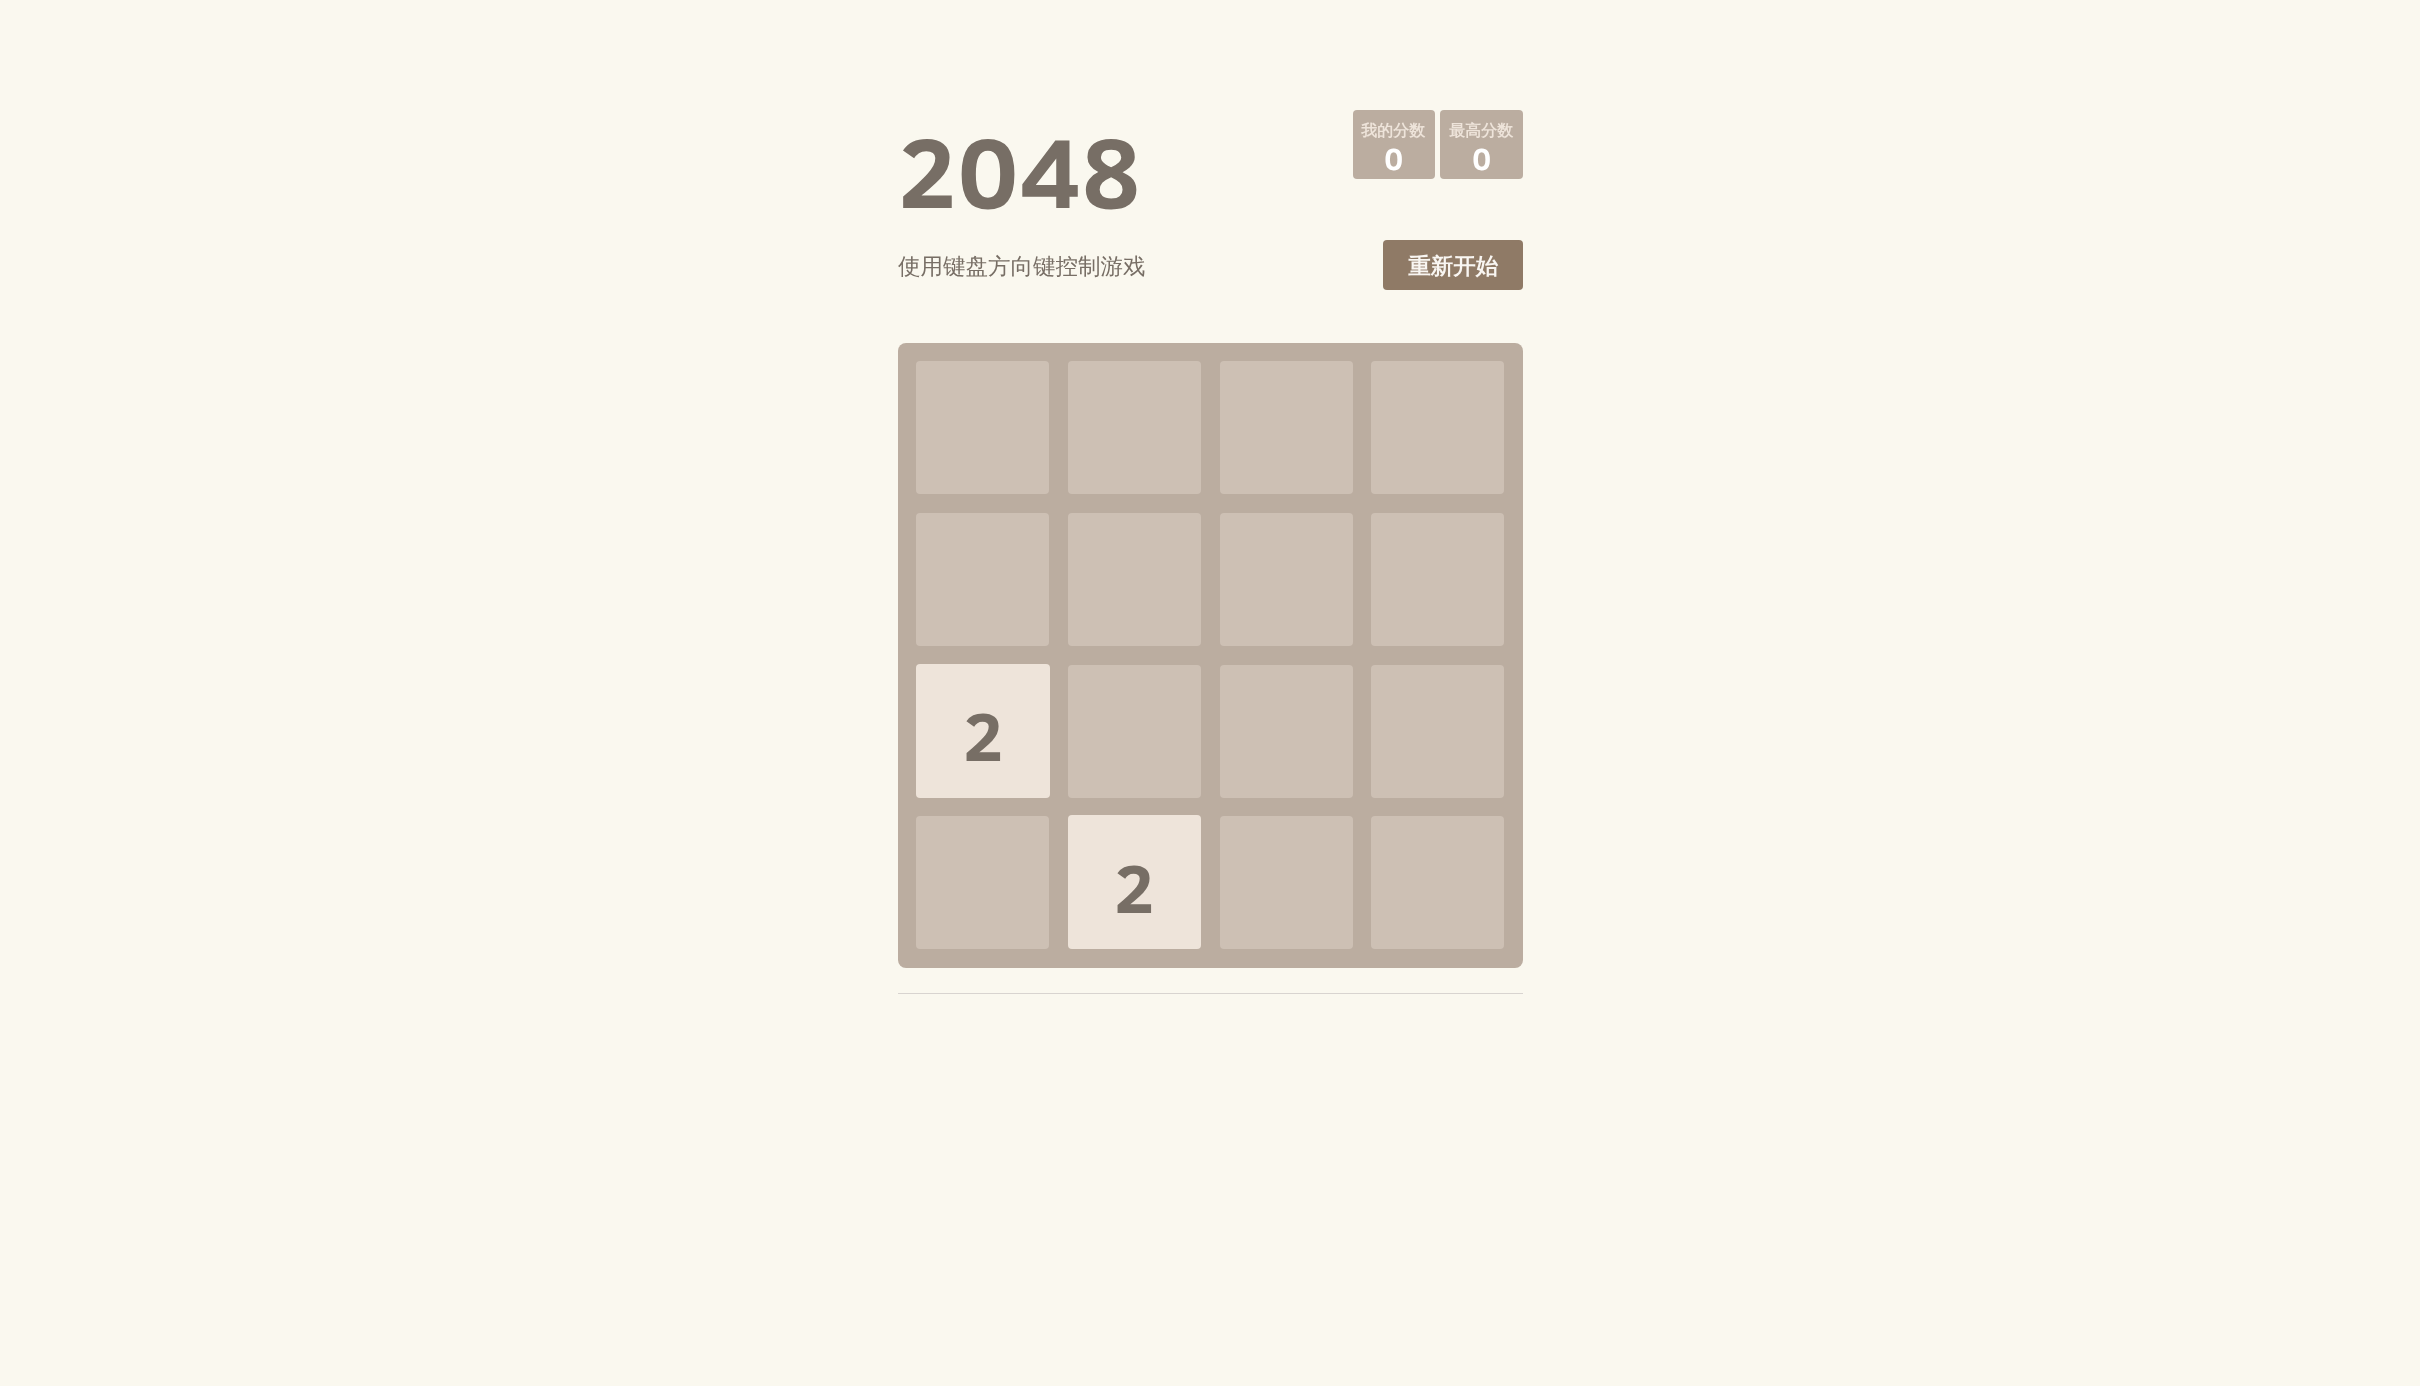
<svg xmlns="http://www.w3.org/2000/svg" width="2420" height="1386">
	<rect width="100%" height="100%" fill="#FAF8EF" />
	<text x="898" y="208" font-family="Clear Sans" font-size="100" font-weight="700" fill="#776E65">2048</text>
	<rect x="1353" y="110" width="82" height="69" rx="4" fill="#BBADA0" />
	<text x="1361" y="136" font-family="WenQuanYi Zen Hei" font-size="16" font-weight="700" fill="#EEE4DA">我的分数</text>
	<text x="1384" y="170" font-family="Clear Sans" font-size="31" font-weight="700" fill="#FFFFFF">0</text>
	<rect x="1440" y="110" width="83" height="69" rx="4" fill="#BBADA0" />
	<text x="1449" y="136" font-family="WenQuanYi Zen Hei" font-size="16" font-weight="700" fill="#EEE4DA">最高分数</text>
	<text x="1472" y="170" font-family="Clear Sans" font-size="31" font-weight="700" fill="#FFFFFF">0</text>
	<text x="898" y="274" font-family="WenQuanYi Zen Hei" font-size="22.5" font-weight="500" fill="#776E65">使用键盘方向键控制游戏</text>
	<rect x="1383" y="240" width="140" height="50" rx="4" fill="#8F7A66" />
	<text x="1408" y="274" font-family="WenQuanYi Zen Hei" font-size="22.5" font-weight="700" fill="#F9F6F2">重新开始</text>
	<rect x="898" y="343" width="625" height="625" rx="8" fill="#BBADA0" />
	<rect x="916" y="361" width="133" height="133" rx="4" fill="#CDC0B4" />
	<rect x="1068" y="361" width="133" height="133" rx="4" fill="#CDC0B4" />
	<rect x="1220" y="361" width="133" height="133" rx="4" fill="#CDC0B4" />
	<rect x="1371" y="361" width="133" height="133" rx="4" fill="#CDC0B4" />
	<rect x="916" y="513" width="133" height="133" rx="4" fill="#CDC0B4" />
	<rect x="1068" y="513" width="133" height="133" rx="4" fill="#CDC0B4" />
	<rect x="1220" y="513" width="133" height="133" rx="4" fill="#CDC0B4" />
	<rect x="1371" y="513" width="133" height="133" rx="4" fill="#CDC0B4" />
	<rect x="1068" y="665" width="133" height="133" rx="4" fill="#CDC0B4" />
	<rect x="1220" y="665" width="133" height="133" rx="4" fill="#CDC0B4" />
	<rect x="1371" y="665" width="133" height="133" rx="4" fill="#CDC0B4" />
	<rect x="916" y="816" width="133" height="133" rx="4" fill="#CDC0B4" />
	<rect x="1220" y="816" width="133" height="133" rx="4" fill="#CDC0B4" />
	<rect x="1371" y="816" width="133" height="133" rx="4" fill="#CDC0B4" />
	<rect x="916" y="664" width="134" height="134" rx="4" fill="#EEE4DA" />
	<text x="963" y="761" font-family="Clear Sans" font-size="69" font-weight="700" fill="#776E65">2</text>
	<rect x="1068" y="815" width="133" height="134" rx="4" fill="#EEE4DA" />
	<text x="1114" y="913" font-family="Clear Sans" font-size="69" font-weight="700" fill="#776E65">2</text>
	<rect x="898" y="993" width="625" height="1" fill="#D8D4D0" />
</svg>
